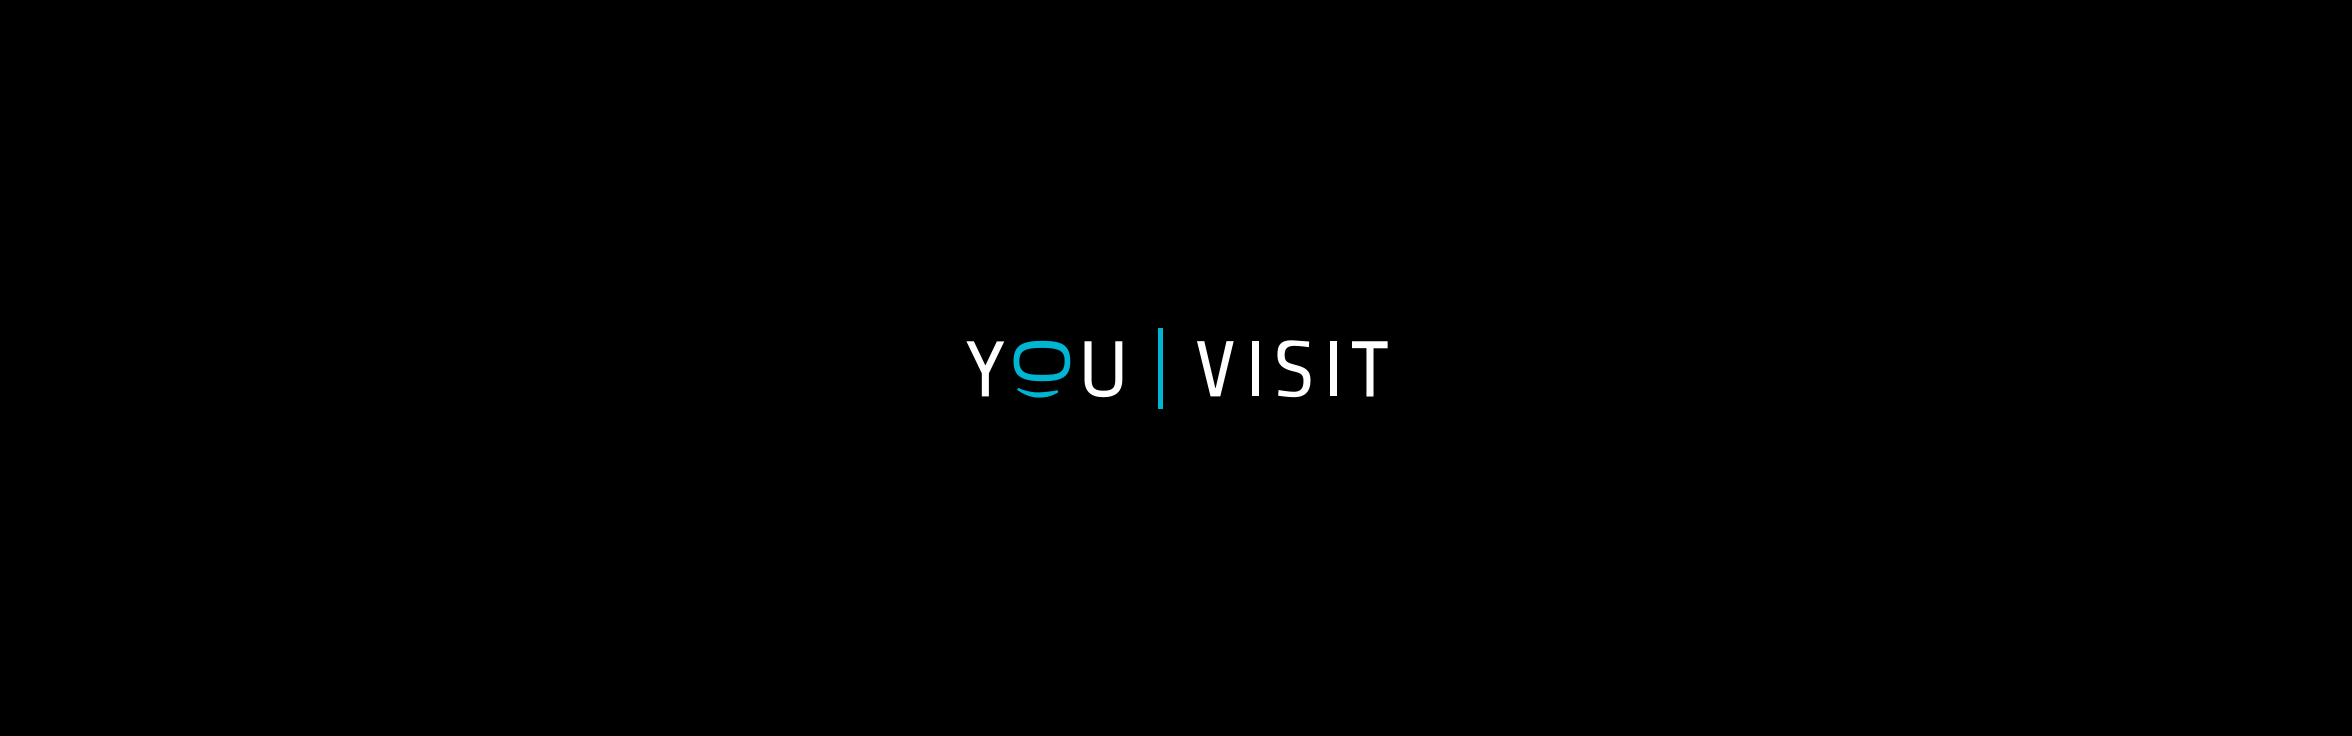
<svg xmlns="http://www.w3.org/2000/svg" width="2352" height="736">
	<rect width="100%" height="100%" fill="#000000" />
	<image x="966" y="328" width="422" height="81" href="assets/img1.png" />
</svg>
